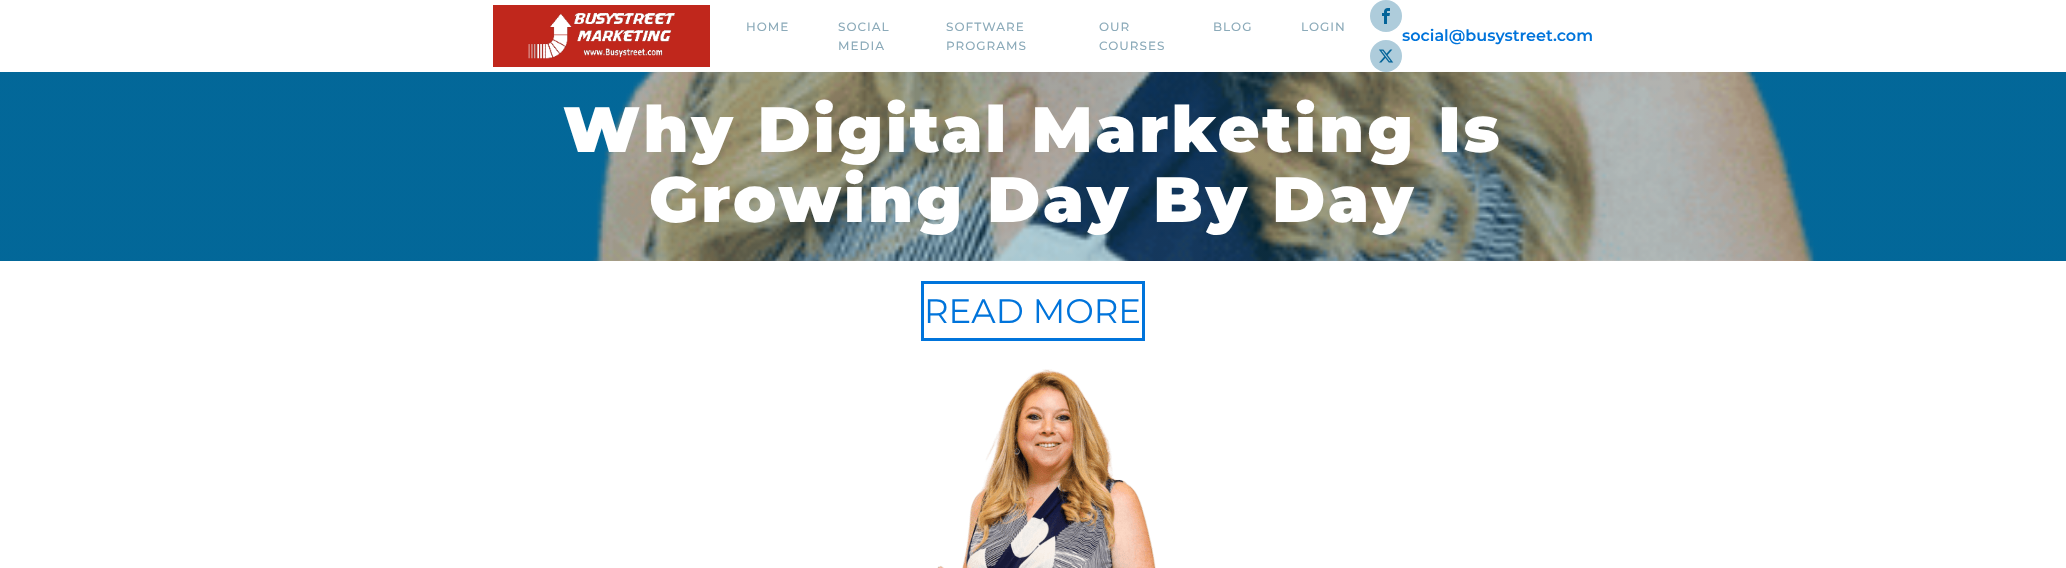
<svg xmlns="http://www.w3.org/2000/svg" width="2066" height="568">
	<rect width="100%" height="100%" fill="#FFFFFF" />
	<rect x="493" y="5" width="217" height="62" fill="#C0271C" />
	<image x="528" y="13" width="147" height="46" href="assets/img1.png" />
	<g font-family="Montserrat" font-size="12" font-weight="500" letter-spacing="1" fill="#8BAAB9">
		<text x="746" y="31">HOME</text>
		<text x="838" y="31">SOCIAL</text>
		<text x="838" y="50">MEDIA</text>
		<text x="946" y="31">SOFTWARE</text>
		<text x="946" y="50">PROGRAMS</text>
		<text x="1099" y="31">OUR</text>
		<text x="1099" y="50">COURSES</text>
		<text x="1213" y="31">BLOG</text>
		<text x="1301" y="31">LOGIN</text>
	</g>
	<circle cx="1386" cy="16" r="16" fill="#AECCDB" />
	<image x="1382" y="8" width="8" height="16" href="assets/img2.png" />
	<circle cx="1386" cy="56" r="16" fill="#AECCDB" />
	<image x="1379" y="49" width="15" height="14" href="assets/img3.png" />
	<text x="1402" y="41" font-family="Montserrat" font-size="16" font-weight="600" fill="#0074DB">social@busystreet.com</text>
	<rect x="0" y="72" width="2066" height="189" fill="#036499" />
	<image x="0" y="72" width="2066" height="189" href="assets/img4.png" />
	<g font-family="Montserrat" font-size="64" font-weight="900" letter-spacing="3" fill="#FFFFFF">
		<text x="563" y="152">Why Digital Marketing Is</text>
		<text x="649" y="222">Growing Day By Day</text>
	</g>
	<rect x="922.5" y="282.5" width="221" height="57" fill="none" stroke="#0074DB" stroke-width="3" />
	<text x="924" y="323" font-family="Montserrat" font-size="34" fill="#0074DB">READ MORE</text>
	<image x="937" y="369" width="219" height="199" href="assets/img5.png" />
</svg>
